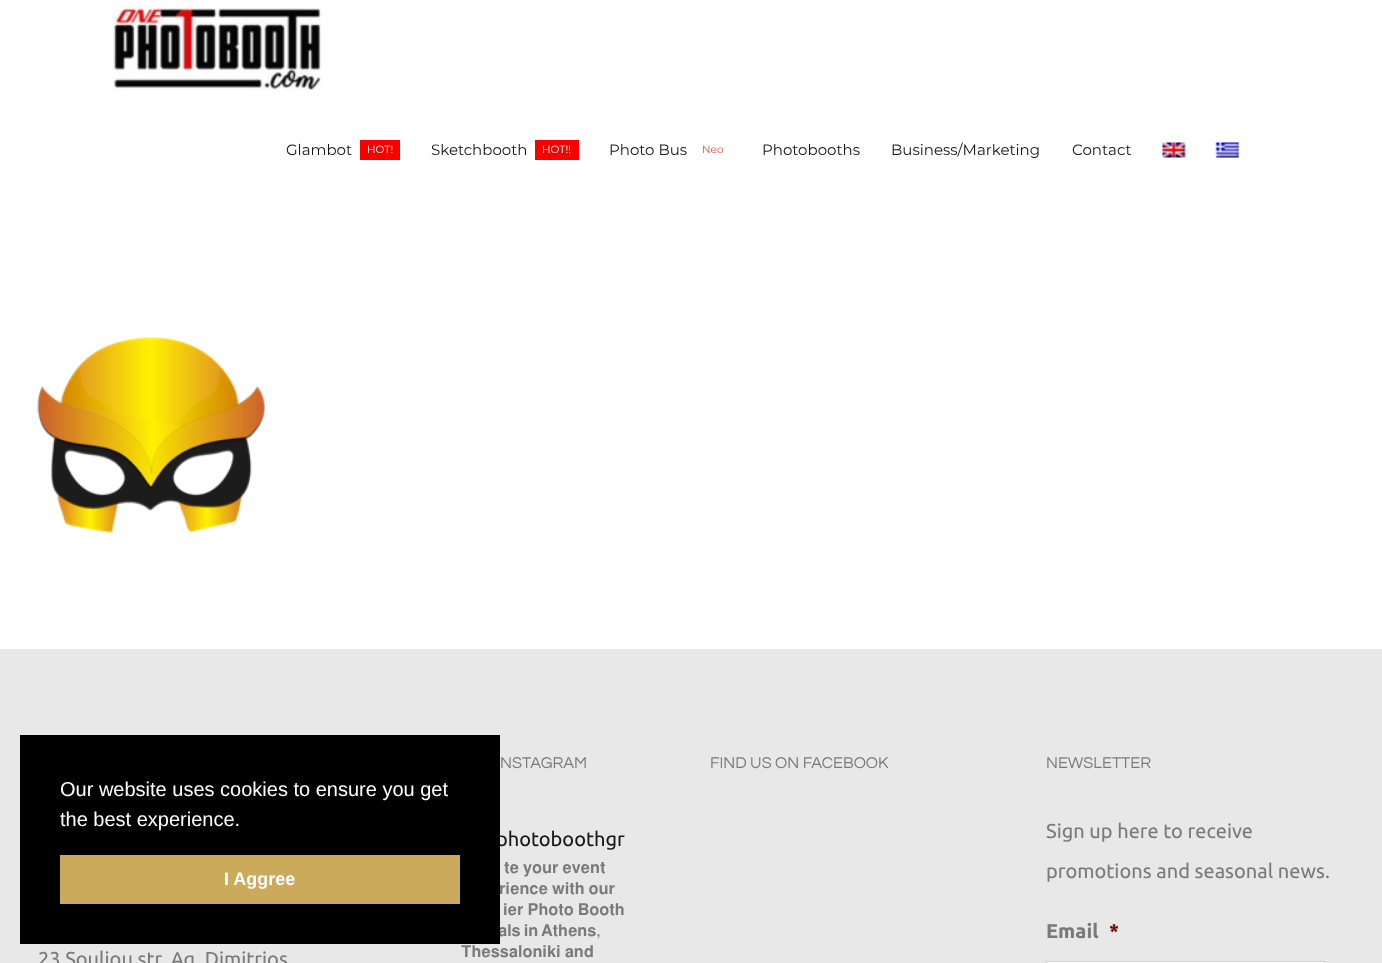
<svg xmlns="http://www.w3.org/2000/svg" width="1382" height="963">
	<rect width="100%" height="100%" fill="#FFFFFF" />
	<image x="112" y="6" width="210" height="85" href="assets/img1.png" />
	<text x="286" y="155" font-family="Montserrat" font-size="15" font-weight="100" fill="#171717">Glambot</text>
	<rect x="360" y="140" width="40" height="20" fill="#F90000" />
	<text x="367" y="153" font-family="Montserrat" font-size="10.5" font-weight="100" fill="#F9F9F9">HOT!</text>
	<text x="431" y="155" font-family="Montserrat" font-size="15" font-weight="100" fill="#171717">Sketchbooth</text>
	<rect x="535" y="140" width="44" height="20" fill="#F90000" />
	<text x="542" y="153" font-family="Montserrat" font-size="10.5" font-weight="100" fill="#FFFFFF">HOT!!</text>
	<text x="609" y="155" font-family="Montserrat" font-size="15" font-weight="100" fill="#171717">Photo Bus</text>
	<text x="702" y="153" font-family="Montserrat" font-size="10.5" font-weight="100" fill="#F44336">Neo</text>
	<g font-family="Montserrat" font-size="15" font-weight="100" fill="#171717">
		<text x="762" y="155">Photobooths</text>
		<text x="891" y="155">Business/Marketing</text>
		<text x="1072" y="155">Contact</text>
	</g>
	<image x="1162" y="142" width="24" height="16" href="assets/img2.png" />
	<image x="1215" y="142" width="25" height="16" href="assets/img3.png" />
	<image x="37" y="337" width="228" height="196" href="assets/img4.png" />
	<rect x="0" y="649" width="1382" height="314" fill="#E8E8E8" />
	<text x="500" y="768" font-family="Questrial" font-size="16.25" fill="#7A7A7A">NSTAGRAM</text>
	<text x="496" y="846" font-family="Ubuntu" font-size="20" fill="#171717">photoboothgr</text>
	<g font-family="FreeSans" font-size="16.25" fill="#7A7A7A">
		<text x="504" y="873">𝐭𝐞 𝐲𝐨𝐮𝐫 𝐞𝐯𝐞𝐧𝐭</text>
		<text x="499" y="894">𝐫𝐢𝐞𝐧𝐜𝐞 𝐰𝐢𝐭𝐡 𝐨𝐮𝐫</text>
		<text x="503" y="915">𝐢𝐞𝐫 𝐏𝐡𝐨𝐭𝐨 𝐁𝐨𝐨𝐭𝐡</text>
		<text x="498" y="936" word-spacing="-1">𝐚𝐥𝐬 𝐢𝐧 𝐀𝐭𝐡𝐞𝐧𝐬,</text>
		<text x="461" y="957">𝐓𝐡𝐞𝐬𝐬𝐚𝐥𝐨𝐧𝐢𝐤𝐢 𝐚𝐧𝐝</text>
	</g>
	<g font-family="Questrial" font-size="16.25" fill="#7A7A7A">
		<text x="710" y="768">FIND US ON FACEBOOK</text>
		<text x="1046" y="768">NEWSLETTER</text>
	</g>
	<g font-family="Ubuntu" font-size="20" fill="#7A7A7A">
		<text x="1046" y="838">Sign up here to receive</text>
		<text x="1046" y="878">promotions and seasonal news.</text>
	</g>
	<text x="1046" y="938" font-family="Ubuntu" font-size="20" font-weight="700" fill="#7A7A7A">Email</text>
	<text x="1109" y="938" font-family="Ubuntu" font-size="20" font-weight="700" fill="#790000">*</text>
	<rect x="1046.5" y="961.5" width="278" height="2" fill="#FFFFFF" stroke="#D2D2D2" />
	<text x="38" y="966" font-family="Ubuntu" font-size="20" fill="#7A7A7A">23 Souliou str, Ag. Dimitrios</text>
	<rect x="20" y="735" width="480" height="209" fill="#000000" />
	<g font-family="Liberation Sans" font-size="20" fill="#FFFFFF">
		<text x="60" y="796">Our website uses cookies to ensure you get</text>
		<text x="60" y="826">the best experience.</text>
	</g>
	<rect x="60" y="855" width="400" height="49" fill="#CBAA5C" />
	<text x="224" y="885" font-family="Liberation Sans" font-size="18" font-weight="700" fill="#FFFFFF">I Aggree</text>
</svg>
